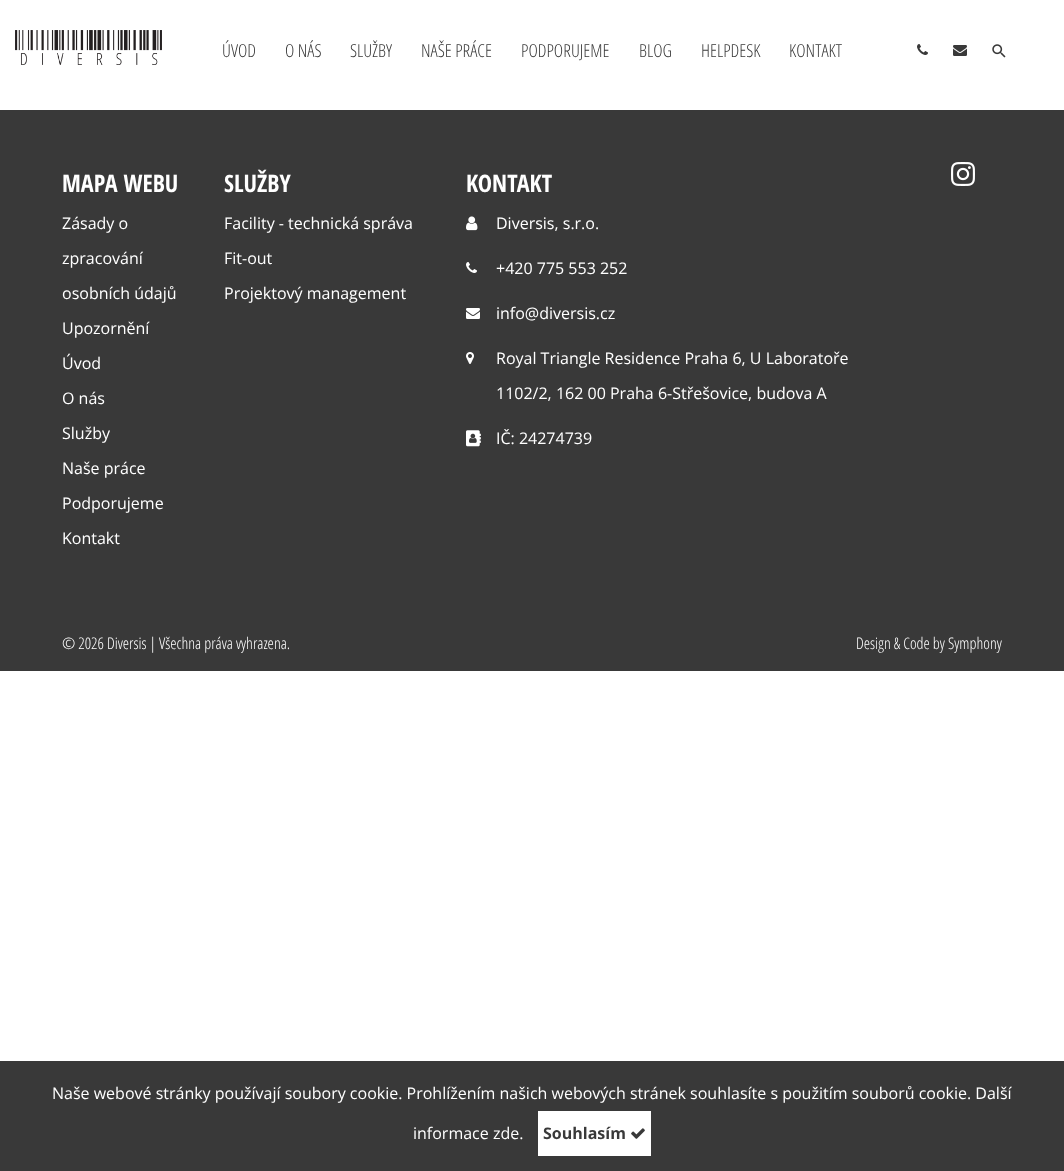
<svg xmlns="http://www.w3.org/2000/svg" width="1064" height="1171">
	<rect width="100%" height="100%" fill="#FFFFFF" />
	<image x="15" y="30" width="147" height="35" href="assets/img1.png" />
	<g font-family="Open Sans Condensed" font-size="18" font-weight="300" fill="#393939">
		<text x="222" y="57">ÚVOD</text>
		<text x="285" y="57">O NÁS</text>
		<text x="350" y="57">SLUŽBY</text>
		<text x="421" y="57">NAŠE PRÁCE</text>
		<text x="521" y="57">PODPORUJEME</text>
		<text x="639" y="57">BLOG</text>
		<text x="701" y="57">HELPDESK</text>
		<text x="789" y="57">KONTAKT</text>
	</g>
	<image x="917" y="44" width="11" height="11" href="assets/img2.png" />
	<image x="953" y="45" width="14" height="11" href="assets/img3.png" />
	<image x="992" y="44" width="14" height="14" href="assets/img4.png" />
	<rect x="0" y="110" width="1064" height="561" fill="#393939" />
	<text x="62" y="192" font-family="Open Sans Condensed" font-size="24" font-weight="700" fill="#FFFFFF">MAPA WEBU</text>
	<g font-family="Open Sans" font-size="16" fill="#FFFFFF">
		<text x="62" y="229">Zásady o</text>
		<text x="62" y="264">zpracování</text>
		<text x="62" y="299">osobních údajů</text>
		<text x="62" y="334">Upozornění</text>
		<text x="62" y="369">Úvod</text>
		<text x="62" y="404">O nás</text>
		<text x="62" y="439">Služby</text>
		<text x="62" y="474">Naše práce</text>
		<text x="62" y="509">Podporujeme</text>
		<text x="62" y="544">Kontakt</text>
	</g>
	<text x="224" y="192" font-family="Open Sans Condensed" font-size="24" font-weight="700" fill="#FFFFFF">SLUŽBY</text>
	<g font-family="Open Sans" font-size="16" fill="#FFFFFF">
		<text x="224" y="229">Facility - technická správa</text>
		<text x="224" y="264">Fit-out</text>
		<text x="224" y="299">Projektový management</text>
	</g>
	<text x="466" y="192" font-family="Open Sans Condensed" font-size="24" font-weight="700" fill="#FFFFFF">KONTAKT</text>
	<image x="466" y="216" width="12" height="15" href="assets/img5.png" />
	<text x="496" y="229" font-family="Open Sans" font-size="16" fill="#FFFFFF">Diversis, s.r.o.</text>
	<image x="466" y="262" width="11" height="11" href="assets/img6.png" />
	<text x="496" y="274" font-family="Open Sans" font-size="16" fill="#FFFFFF">+420 775 553 252</text>
	<image x="466" y="308" width="14" height="11" href="assets/img7.png" />
	<text x="496" y="319" font-family="Open Sans" font-size="16" fill="#FFFFFF">info@diversis.cz</text>
	<image x="466" y="352" width="8" height="12" href="assets/img8.png" />
	<g font-family="Open Sans" font-size="16" fill="#FFFFFF">
		<text x="496" y="364">Royal Triangle Residence Praha 6, U Laboratoře</text>
		<text x="496" y="399">1102/2, 162 00 Praha 6-Střešovice, budova A</text>
	</g>
	<image x="466" y="430" width="15" height="17" href="assets/img9.png" />
	<text x="496" y="444" font-family="Open Sans" font-size="16" fill="#FFFFFF">IČ: 24274739</text>
	<image x="951" y="162" width="24" height="24" href="assets/img10.png" />
	<g font-family="Open Sans Condensed" font-size="16" font-weight="300" fill="#FFFFFF">
		<text x="62" y="649">© 2026 Diversis | Všechna práva vyhrazena.</text>
		<text x="856" y="649">Design &amp; Code by Symphony</text>
	</g>
	<rect x="0" y="1061" width="1064" height="110" fill="#393939" />
	<g font-family="Open Sans" font-size="16" fill="#FFFFFF">
		<text x="52" y="1099">Naše webové stránky používají soubory cookie. Prohlížením našich webových stránek souhlasíte s použitím souborů cookie. Další</text>
		<text x="413" y="1139">informace zde.</text>
	</g>
	<rect x="538" y="1111" width="113" height="45" fill="#FFFFFF" />
	<text x="543" y="1139" font-family="Open Sans" font-size="16" font-weight="700" fill="#393939">Souhlasím</text>
	<image x="631" y="1128" width="14" height="11" href="assets/img11.png" />
</svg>
